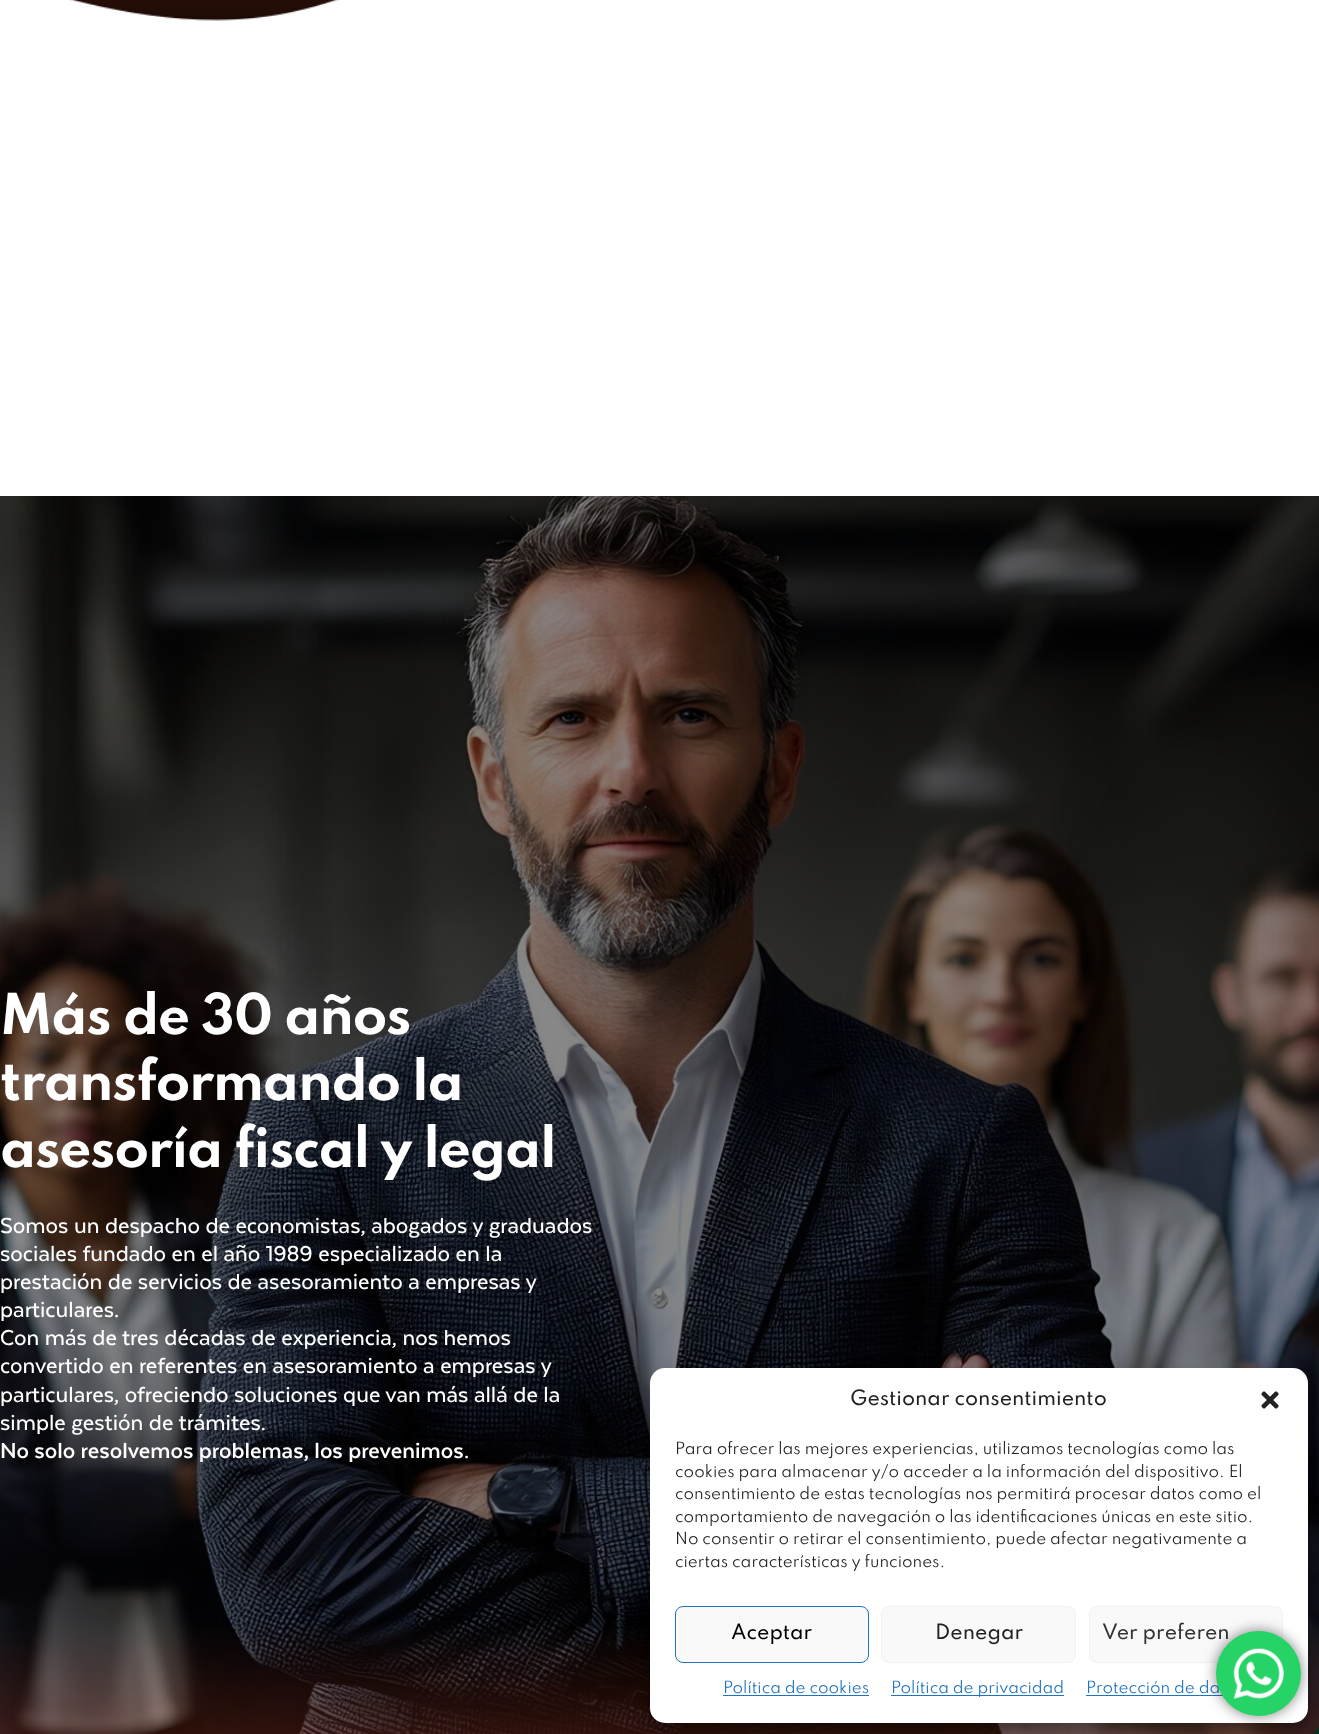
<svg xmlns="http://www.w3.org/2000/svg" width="1319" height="1734">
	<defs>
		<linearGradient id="g1" gradientUnits="userSpaceOnUse" x1="660" y1="-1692" x2="660" y2="43"><stop offset="0" stop-color="#00573F" stop-opacity="0.55" /><stop offset="0.2" stop-color="#000000" stop-opacity="0.27" /></linearGradient>
		<linearGradient id="g2" gradientUnits="userSpaceOnUse" x1="660" y1="-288" x2="660" y2="96"><stop offset="0" stop-color="#000000" stop-opacity="0" /><stop offset="1" stop-color="#000000" /></linearGradient>
	</defs>
	<rect width="100%" height="100%" fill="#FFFFFF" />
	<image x="68" y="0" width="272" height="21" href="assets/img2.png" />
	<rect x="68" y="0" width="272" height="21" fill="url(#g1)" />
	<rect x="68" y="0" width="272" height="21" fill="url(#g2)" />
	<image x="0" y="0" width="1319" height="96" href="assets/img1.png" />
	<image x="0" y="496" width="1319" height="1238" href="assets/img3.png" />
	<g font-family="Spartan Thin" font-size="50" font-weight="700" letter-spacing="-1.25" fill="#FFFFFF">
		<text x="0" y="1034">Más de 30 años</text>
		<text x="0" y="1100">transformando la</text>
		<text x="0" y="1167">asesoría fiscal y legal</text>
	</g>
	<g font-family="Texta" font-size="25" font-weight="500" fill="#FFFFFF">
		<text x="0" y="1233">Somos un despacho de economistas, abogados y graduados</text>
		<text x="0" y="1261">sociales fundado en el año 1989 especializado en la</text>
		<text x="0" y="1289">prestación de servicios de asesoramiento a empresas y</text>
		<text x="0" y="1317">particulares.</text>
		<text x="0" y="1345">Con más de tres décadas de experiencia, nos hemos</text>
		<text x="0" y="1373">convertido en referentes en asesoramiento a empresas y</text>
		<text x="0" y="1402">particulares, ofreciendo soluciones que van más allá de la</text>
		<text x="0" y="1430">simple gestión de trámites.</text>
	</g>
	<text x="0" y="1458" font-family="Texta" font-size="25" font-weight="700" fill="#FFFFFF">No solo resolvemos problemas, los prevenimos</text>
	<text x="464" y="1458" font-family="Texta" font-size="25" font-weight="500" fill="#FFFFFF">.</text>
	<image x="1312" y="1726" width="7" height="8" href="assets/img4.png" />
	<rect x="650" y="1375" width="658" height="355" rx="15" fill="#000000" fill-opacity="0.23" filter="blur(4px)" />
	<rect x="650" y="1380" width="658" height="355" rx="15" fill="#000000" fill-opacity="0.19" filter="blur(12.5px)" />
	<rect x="650" y="1368" width="658" height="355" rx="15" fill="#FFFFFF" />
	<text x="850" y="1405" font-family="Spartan" font-size="18.75" font-weight="500" fill="#222222">Gestionar consentimiento</text>
	<image x="1261" y="1391" width="18" height="18" href="assets/img5.png" />
	<g font-family="Spartan" font-size="15" fill="#222222">
		<text x="675" y="1454">Para ofrecer las mejores experiencias, utilizamos tecnologías como las</text>
		<text x="675" y="1477">cookies para almacenar y/o acceder a la información del dispositivo. El</text>
		<text x="675" y="1499">consentimiento de estas tecnologías nos permitirá procesar datos como el</text>
		<text x="675" y="1522">comportamiento de navegación o las identificaciones únicas en este sitio.</text>
		<text x="675" y="1544">No consentir o retirar el consentimiento, puede afectar negativamente a</text>
		<text x="675" y="1567">ciertas características y funciones.</text>
	</g>
	<rect x="675.5" y="1606.5" width="193" height="56" rx="7.5" fill="#F9F9F9" stroke="#1E73BE" />
	<text x="731" y="1639" font-family="Spartan" font-size="18.75" font-weight="500" fill="#000000">Aceptar</text>
	<rect x="881.5" y="1606.5" width="194" height="56" rx="7.5" fill="#F9F9F9" stroke="#F2F2F2" />
	<text x="935" y="1639" font-family="Spartan" font-size="18.75" font-weight="500" fill="#222222">Denegar</text>
	<rect x="1089.5" y="1606.5" width="193" height="56" rx="7.5" fill="#F9F9F9" stroke="#F2F2F2" />
	<text x="1102" y="1639" font-family="Spartan" font-size="18.75" font-weight="500" fill="#333333">Ver preferen</text>
	<text x="723" y="1693" font-family="Spartan" font-size="15" fill="#1E73BE">Política de cookies</text>
	<rect x="723" y="1695" width="146" height="1" fill="#1E73BE" />
	<rect x="891" y="1695" width="173" height="1" fill="#1E73BE" />
	<g font-family="Spartan" font-size="15" fill="#1E73BE">
		<text x="891" y="1693">Política de privacidad</text>
		<text x="1086" y="1693">Protección de da</text>
	</g>
	<rect x="1086" y="1695" width="137" height="1" fill="#1E73BE" />
	<rect x="1216" y="1631" width="85" height="85" rx="42.5" fill="#000000" fill-opacity="0.5" filter="blur(7px)" />
	<circle cx="1258.5" cy="1673.5" r="42.5" fill="#25D366" />
	<image x="1233" y="1648" width="51" height="51" href="assets/img6.png" />
</svg>
